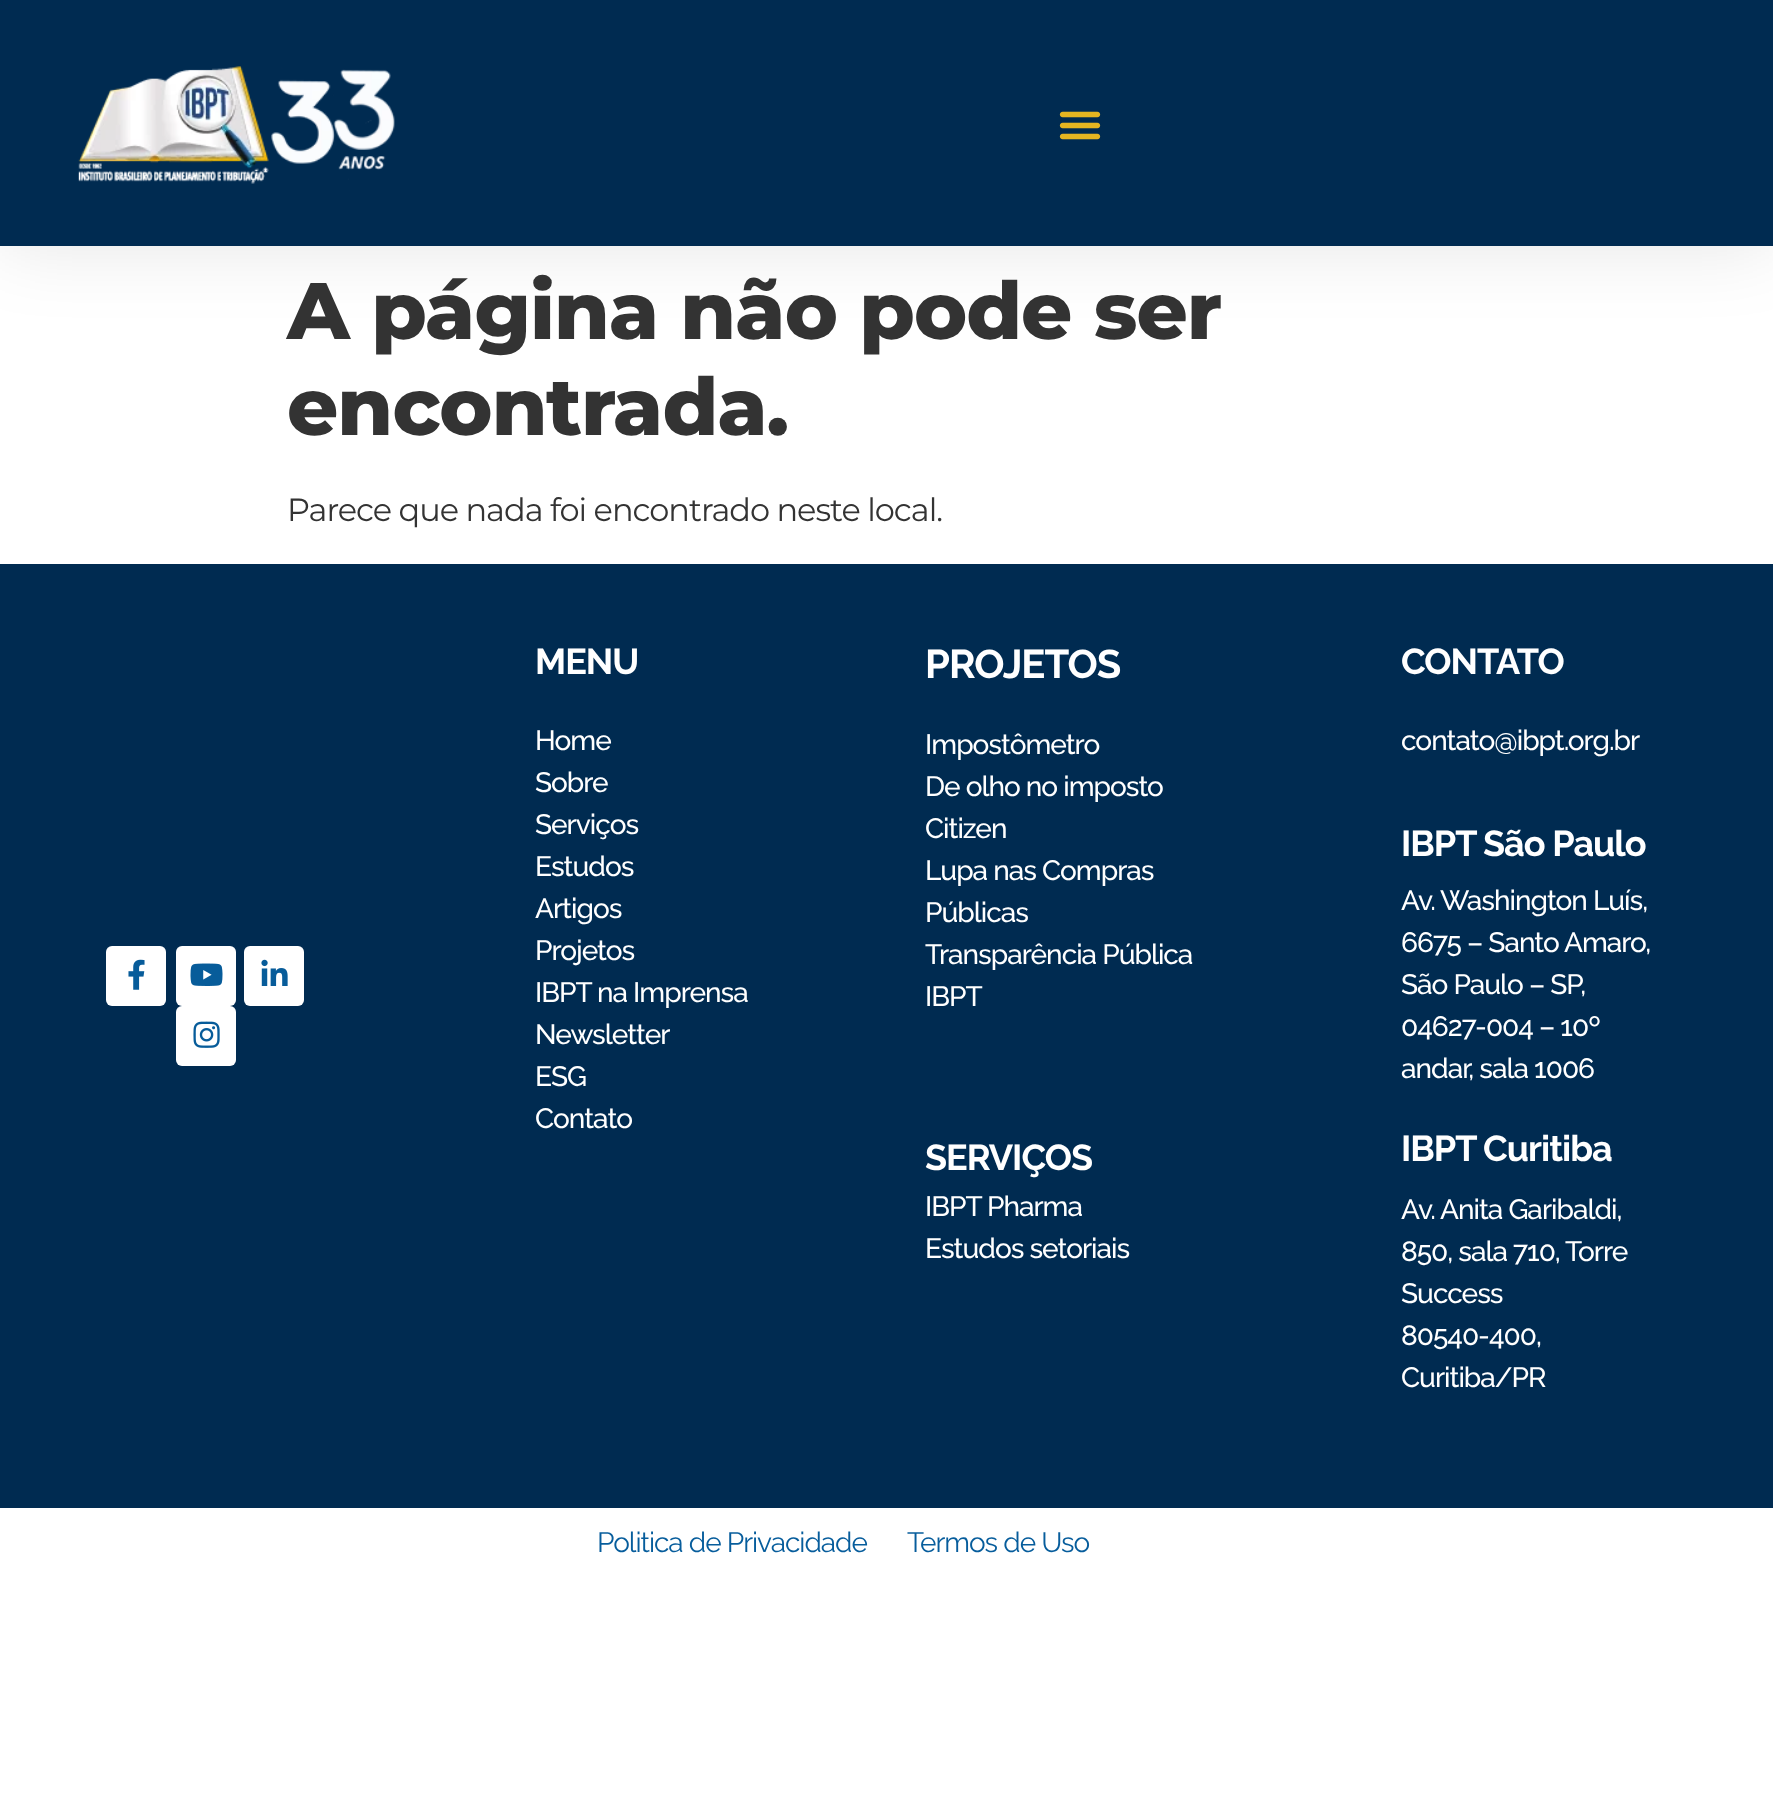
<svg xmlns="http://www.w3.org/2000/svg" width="1773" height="1806">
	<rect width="100%" height="100%" fill="#FFFFFF" />
	<rect x="0" y="0" width="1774" height="246" fill="#000000" fill-opacity="0.1" filter="blur(38px)" />
	<rect x="0" y="0" width="1773" height="246" fill="#002B51" />
	<image x="78" y="66" width="317" height="118" href="assets/img1.png" />
	<image x="1059" y="111" width="42" height="29" href="assets/img2.png" />
	<g font-family="Montserrat" font-size="80" font-weight="800" letter-spacing="-1" fill="#333333">
		<text x="287" y="339">A página não pode ser</text>
		<text x="287" y="435">encontrada.</text>
	</g>
	<text x="287" y="521" font-family="Montserrat" font-size="32" letter-spacing="-1" fill="#333333">Parece que nada foi encontrado neste local.</text>
	<rect x="0" y="564" width="1773" height="944" fill="#002B51" />
	<rect x="106" y="946" width="60" height="60" rx="6" fill="#FFFFFF" />
	<image x="128" y="959" width="17" height="31" href="assets/img3.png" />
	<rect x="176" y="946" width="60" height="60" rx="6" fill="#FFFFFF" />
	<image x="190" y="963" width="33" height="23" href="assets/img4.png" />
	<rect x="244" y="946" width="60" height="60" rx="6" fill="#FFFFFF" />
	<image x="261" y="959" width="27" height="27" href="assets/img5.png" />
	<rect x="176" y="1006" width="60" height="60" rx="6" fill="#FFFFFF" />
	<image x="193" y="1021" width="27" height="27" href="assets/img6.png" />
	<text x="535" y="674" font-family="Raleway" font-size="36" font-weight="700" letter-spacing="-1" fill="#FFFFFF">MENU</text>
	<g font-family="Raleway" font-size="28" font-weight="500" letter-spacing="-1" fill="#FFFFFF">
		<text x="535" y="750">Home</text>
		<text x="535" y="792">Sobre</text>
		<text x="535" y="834">Serviços</text>
		<text x="535" y="876">Estudos</text>
		<text x="535" y="918">Artigos</text>
		<text x="535" y="960">Projetos</text>
		<text x="535" y="1002">IBPT na Imprensa</text>
		<text x="535" y="1044">Newsletter</text>
		<text x="535" y="1086">ESG</text>
		<text x="535" y="1128">Contato</text>
	</g>
	<text x="925" y="678" font-family="Raleway" font-size="40" font-weight="700" letter-spacing="-1" fill="#FFFFFF">PROJETOS</text>
	<g font-family="Raleway" font-size="28" font-weight="500" letter-spacing="-1" fill="#FFFFFF">
		<text x="925" y="754">Impostômetro</text>
		<text x="925" y="796">De olho no imposto</text>
		<text x="925" y="838">Citizen</text>
		<text x="925" y="880">Lupa nas Compras</text>
		<text x="925" y="922">Públicas</text>
		<text x="925" y="964">Transparência Pública</text>
		<text x="925" y="1006">IBPT</text>
	</g>
	<text x="925" y="1170" font-family="Raleway" font-size="36" font-weight="700" letter-spacing="-1" fill="#FFFFFF">SERVIÇOS</text>
	<g font-family="Raleway" font-size="28" font-weight="500" letter-spacing="-1" fill="#FFFFFF">
		<text x="925" y="1216">IBPT Pharma</text>
		<text x="925" y="1258">Estudos setoriais</text>
	</g>
	<text x="1401" y="674" font-family="Raleway" font-size="36" font-weight="700" letter-spacing="-1" fill="#FFFFFF">CONTATO</text>
	<text x="1401" y="750" font-family="Raleway" font-size="28" font-weight="500" letter-spacing="-1" fill="#FFFFFF">contato@ibpt.org.br</text>
	<text x="1401" y="856" font-family="Raleway" font-size="36" font-weight="700" letter-spacing="-1" fill="#FFFFFF">IBPT São Paulo</text>
	<g font-family="Raleway" font-size="28" font-weight="500" letter-spacing="-1" fill="#FFFFFF">
		<text x="1401" y="910">Av. Washington Luís,</text>
		<text x="1401" y="952">6675 – Santo Amaro,</text>
		<text x="1401" y="994">São Paulo – SP,</text>
		<text x="1401" y="1036">04627-004 – 10º</text>
		<text x="1401" y="1078">andar, sala 1006</text>
	</g>
	<text x="1401" y="1161" font-family="Raleway" font-size="36" font-weight="700" letter-spacing="-1" fill="#FFFFFF">IBPT Curitiba</text>
	<g font-family="Raleway" font-size="28" font-weight="500" letter-spacing="-1" fill="#FFFFFF">
		<text x="1401" y="1219">Av. Anita Garibaldi,</text>
		<text x="1401" y="1261">850, sala 710, Torre</text>
		<text x="1401" y="1303">Success</text>
		<text x="1401" y="1345">80540-400,</text>
		<text x="1401" y="1387">Curitiba/PR</text>
	</g>
	<g font-family="Raleway" font-size="28" letter-spacing="-1" fill="#075D9C">
		<text x="597" y="1552">Politica de Privacidade</text>
		<text x="907" y="1552">Termos de Uso</text>
	</g>
</svg>
